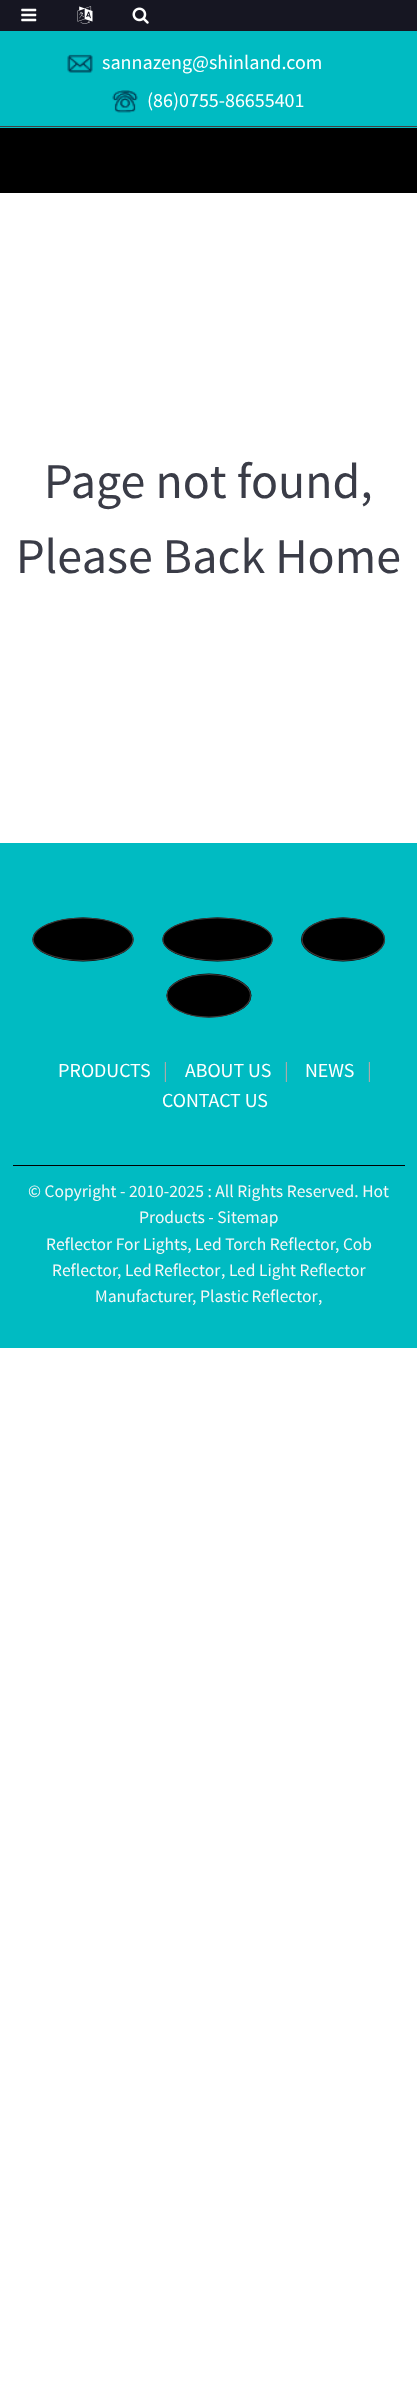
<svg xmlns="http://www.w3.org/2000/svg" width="417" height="2401">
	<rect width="100%" height="100%" fill="#FFFFFF" />
	<rect x="0" y="0" width="417" height="31" fill="#161622" />
	<image x="21" y="8" width="16" height="14" href="assets/img1.png" />
	<image x="77" y="6" width="16" height="18" href="assets/img2.png" />
	<image x="132" y="7" width="17" height="17" href="assets/img3.png" />
	<rect x="0" y="31" width="417" height="97" fill="#00BBC2" />
	<rect x="0" y="126" width="417" height="1" fill="#414141" />
	<image x="67" y="54" width="26" height="19" href="assets/img4.png" />
	<text x="102" y="69" font-family="Source Sans Pro" font-size="20" fill="#FFFFFF">sannazeng@shinland.com</text>
	<image x="112" y="90" width="26" height="23" href="assets/img5.png" />
	<text x="147" y="107" font-family="Source Sans Pro" font-size="20" fill="#FFFFFF">(86)0755-86655401</text>
	<rect x="0" y="128" width="417" height="65" fill="#000000" />
	<g font-family="Source Sans Pro" font-size="50" fill="#3A3C47">
		<text x="44" y="498">Page not found,</text>
		<text x="16" y="573">Please Back Home</text>
	</g>
	<rect x="0" y="843" width="417" height="505" fill="#00BBC2" />
	<ellipse cx="83" cy="939.5" rx="50.5" ry="22" fill="#000000" />
	<path d="M83 918C110.5 918 133 927.5 133 939.5C133 951 110.5 960.5 83 960.5C55.5 960.5 33 951 33 939.5C33 927.5 55.5 918 83 918Z" fill="none" stroke="#3E3A39" stroke-width="1.2" />
	<ellipse cx="217.5" cy="939.5" rx="55" ry="22" fill="#000000" />
	<path d="M217.5 918C247.5 918 272 927.5 272 939.5C272 951 247.5 960.5 217.5 960.5C187.5 960.5 163 951 163 939.5C163 927.5 187.5 918 217.5 918Z" fill="none" stroke="#3E3A39" stroke-width="1.2" />
	<ellipse cx="343" cy="939.5" rx="42" ry="22" fill="#000000" />
	<path d="M343 918C366 918 384.5 927.5 384.5 939.5C384.5 951 366 960.5 343 960.5C320.5 960.5 302 951 302 939.5C302 927.5 320.5 918 343 918Z" fill="none" stroke="#3E3A39" stroke-width="1.2" />
	<ellipse cx="209" cy="995.5" rx="42.5" ry="22" fill="#000000" />
	<path d="M209 974.5C232 974.5 250.5 984 250.5 995.5C250.5 1007.5 232 1017 209 1017C185.5 1017 167 1007.5 167 995.5C167 984 185.5 974.5 209 974.5Z" fill="none" stroke="#3E3A39" stroke-width="1.2" />
	<text x="58" y="1077" font-family="Source Sans Pro" font-size="20" fill="#FFFFFF">PRODUCTS</text>
	<text x="163" y="1077" font-family="Source Sans Pro" font-size="20" fill="#AAAAAA">|</text>
	<text x="185" y="1077" font-family="Source Sans Pro" font-size="20" fill="#FFFFFF">ABOUT US</text>
	<text x="284" y="1077" font-family="Source Sans Pro" font-size="20" fill="#AAAAAA">|</text>
	<text x="305" y="1077" font-family="Source Sans Pro" font-size="20" fill="#FFFFFF">NEWS</text>
	<text x="367" y="1077" font-family="Source Sans Pro" font-size="20" fill="#AAAAAA">|</text>
	<text x="162" y="1107" font-family="Source Sans Pro" font-size="20" fill="#FFFFFF">CONTACT US</text>
	<rect x="13" y="1165" width="392" height="1" fill="#000000" />
	<g font-family="Source Sans Pro" font-size="17.5" fill="#F7F7F7">
		<text x="28" y="1197">© Copyright - 2010-2025 : All Rights Reserved. Hot</text>
		<text x="139" y="1223">Products - Sitemap</text>
		<text x="46" y="1250">Reflector For Lights,</text>
		<text x="195" y="1250">Led Torch Reflector</text>
		<text x="335" y="1250">, Cob</text>
		<text x="52" y="1276">Reflector</text>
		<text x="117" y="1276">,</text>
		<text x="125" y="1276" word-spacing="-1">Led Reflector</text>
		<text x="221" y="1276">, Led Light Reflector</text>
		<text x="95" y="1302">Manufacturer</text>
		<text x="192" y="1302">,</text>
		<text x="200" y="1302" word-spacing="-1">Plastic Reflector</text>
		<text x="318" y="1302">,</text>
	</g>
</svg>
